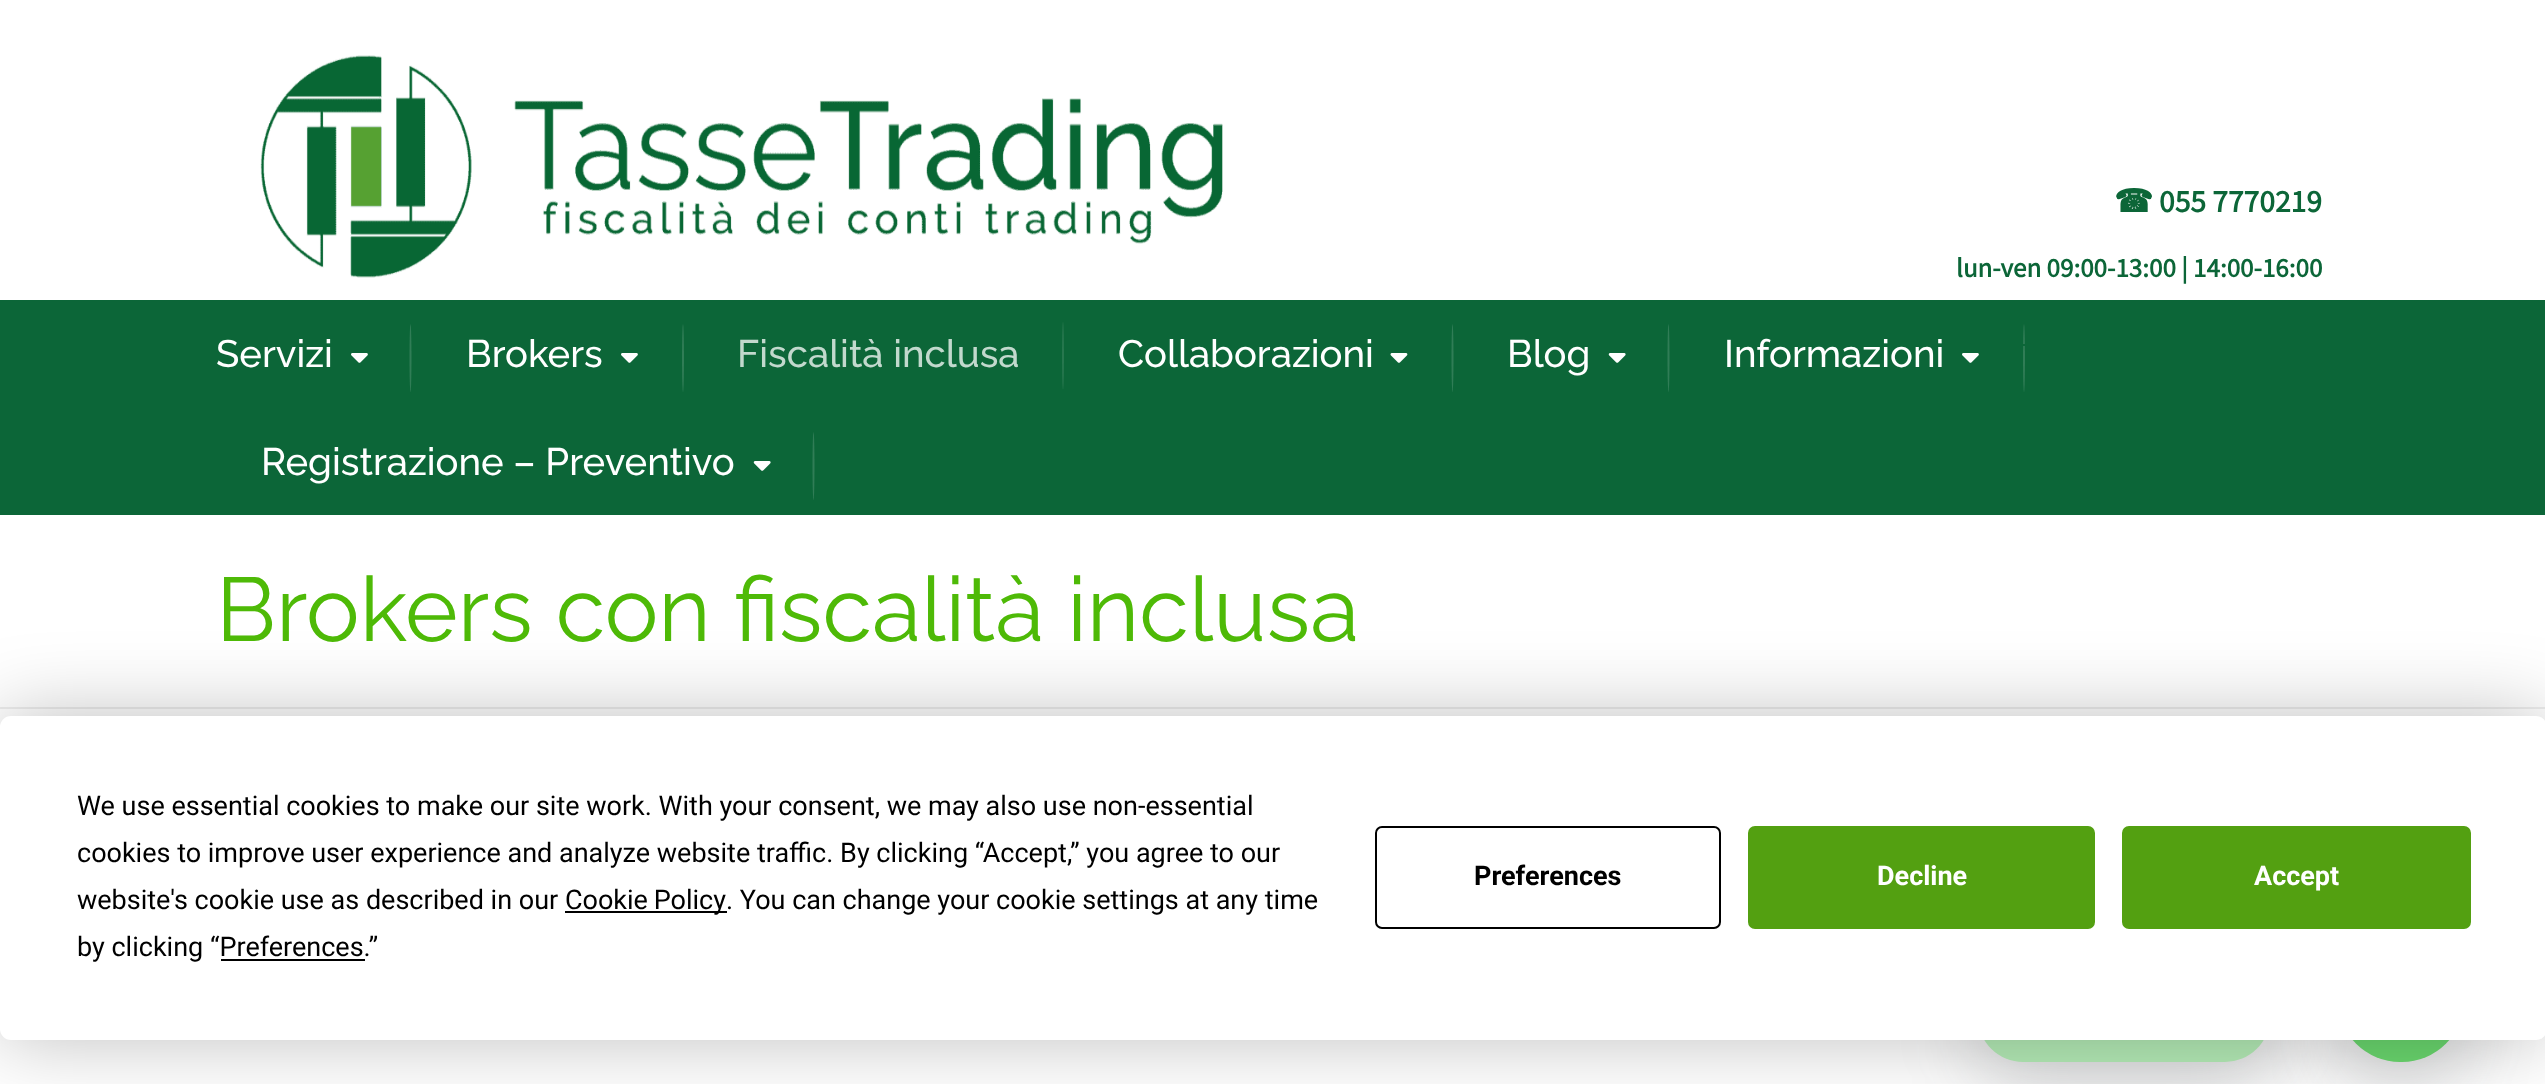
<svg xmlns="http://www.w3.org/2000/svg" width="2545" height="1084">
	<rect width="100%" height="100%" fill="#FFFFFF" />
	<text x="2114" y="212" font-family="DejaVu Sans" font-size="31.5" font-weight="700" fill="#0C6638">☎</text>
	<text x="2159" y="212" font-family="Source Sans Pro" font-size="31.5" font-weight="700" fill="#0C6638">055 7770219</text>
	<text x="1956" y="277" font-family="Source Sans Pro" font-size="27" font-weight="700" fill="#0C6638">lun-ven 09:00-13:00 | 14:00-16:00</text>
	<rect x="0" y="300" width="2545" height="215" fill="#0C6638" />
	<ellipse cx="2024" cy="358" rx="1" ry="34" fill="#307D56" />
	<rect x="2018" y="344" width="7" height="2" fill="#0C6638" />
	<image x="260" y="55" width="963" height="223" href="assets/img1.png" />
	<text x="216" y="367" font-family="Raleway" font-size="38.25" font-weight="500" fill="#FFFFFF">Servizi</text>
	<image x="351" y="353" width="17" height="10" href="assets/img2.png" />
	<ellipse cx="410.5" cy="358" rx="1" ry="34" fill="#307D56" />
	<text x="466" y="367" font-family="Raleway" font-size="38.25" font-weight="500" fill="#FFFFFF">Brokers</text>
	<image x="621" y="353" width="17" height="10" href="assets/img2.png" />
	<ellipse cx="683" cy="358" rx="1" ry="34" fill="#307D56" />
	<text x="737" y="367" font-family="Raleway" font-size="38.25" font-weight="500" fill="#C2D9CD">Fiscalità inclusa</text>
	<ellipse cx="1063" cy="355.5" rx="1" ry="34" fill="#27774E" />
	<text x="1118" y="367" font-family="Raleway" font-size="38.25" font-weight="500" fill="#FFFFFF">Collaborazioni</text>
	<image x="1390" y="353" width="18" height="10" href="assets/img3.png" />
	<ellipse cx="1452.5" cy="358" rx="1" ry="34" fill="#307D56" />
	<text x="1507" y="367" font-family="Raleway" font-size="38.25" font-weight="500" fill="#FFFFFF">Blog</text>
	<image x="1608" y="353" width="18" height="10" href="assets/img4.png" />
	<ellipse cx="1668.5" cy="358" rx="1" ry="34" fill="#307D56" />
	<text x="1724" y="367" font-family="Raleway" font-size="38.25" font-weight="500" fill="#FFFFFF">Informazioni</text>
	<image x="1962" y="353" width="17" height="10" href="assets/img2.png" />
	<text x="261" y="475" font-family="Raleway" font-size="38.25" font-weight="500" fill="#FFFFFF">Registrazione – Preventivo</text>
	<image x="753" y="461" width="18" height="10" href="assets/img4.png" />
	<ellipse cx="813.5" cy="466" rx="1" ry="34" fill="#307D56" />
	<text x="216" y="641" font-family="Raleway" font-size="90" fill="#4EBA07">Brokers con fiscalità inclusa</text>
	<rect x="0" y="707" width="2545" height="2" fill="#EEEEEE" />
	<rect x="2338" y="968" width="126" height="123" rx="61.5" fill="#3B3F48" fill-opacity="0.2" filter="blur(37px)" />
	<rect x="2338" y="938" width="126" height="124" rx="62" fill="#6AD76E" />
	<rect x="1978" y="968" width="292" height="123" rx="45" fill="#3B3F48" fill-opacity="0.2" filter="blur(37px)" />
	<rect x="1978" y="938" width="292" height="124" rx="45" fill="#B4EBB6" />
	<rect x="0" y="716" width="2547" height="324" rx="11" fill="#000000" fill-opacity="0.25" filter="blur(39.5px)" />
	<rect x="0" y="716" width="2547" height="324" rx="11" fill="#FFFFFF" />
	<g font-family="Roboto" font-size="27" fill="#000000">
		<text x="77" y="815">We use essential cookies to make our site work. With your consent, we may also use non-essential</text>
		<text x="77" y="862">cookies to improve user experience and analyze website traffic. By clicking “Accept,” you agree to our</text>
		<text x="77" y="909">website's cookie use as described in our</text>
	</g>
	<rect x="565" y="911" width="162" height="2" fill="#000000" />
	<g font-family="Roboto" font-size="27" fill="#000000">
		<text x="565" y="909" word-spacing="-1">Cookie Policy</text>
		<text x="726" y="909">. You can change your cookie settings at any time</text>
		<text x="77" y="956">by clicking “Preferences.”</text>
	</g>
	<rect x="221" y="959" width="144" height="2" fill="#000000" />
	<rect x="1376" y="827" width="344" height="101" rx="6" fill="none" stroke="#000000" stroke-width="2" />
	<text x="1474" y="885" font-family="Roboto" font-size="27" font-weight="700" fill="#000000">Preferences</text>
	<rect x="1749" y="827" width="345" height="101" rx="6" fill="#53A011" stroke="#53A011" stroke-width="2" />
	<text x="1877" y="885" font-family="Roboto" font-size="27" font-weight="700" fill="#FFFFFF">Decline</text>
	<rect x="2123" y="827" width="347" height="101" rx="6" fill="#53A011" stroke="#53A011" stroke-width="2" />
	<text x="2254" y="885" font-family="Roboto" font-size="27" font-weight="700" fill="#FFFFFF">Accept</text>
</svg>
